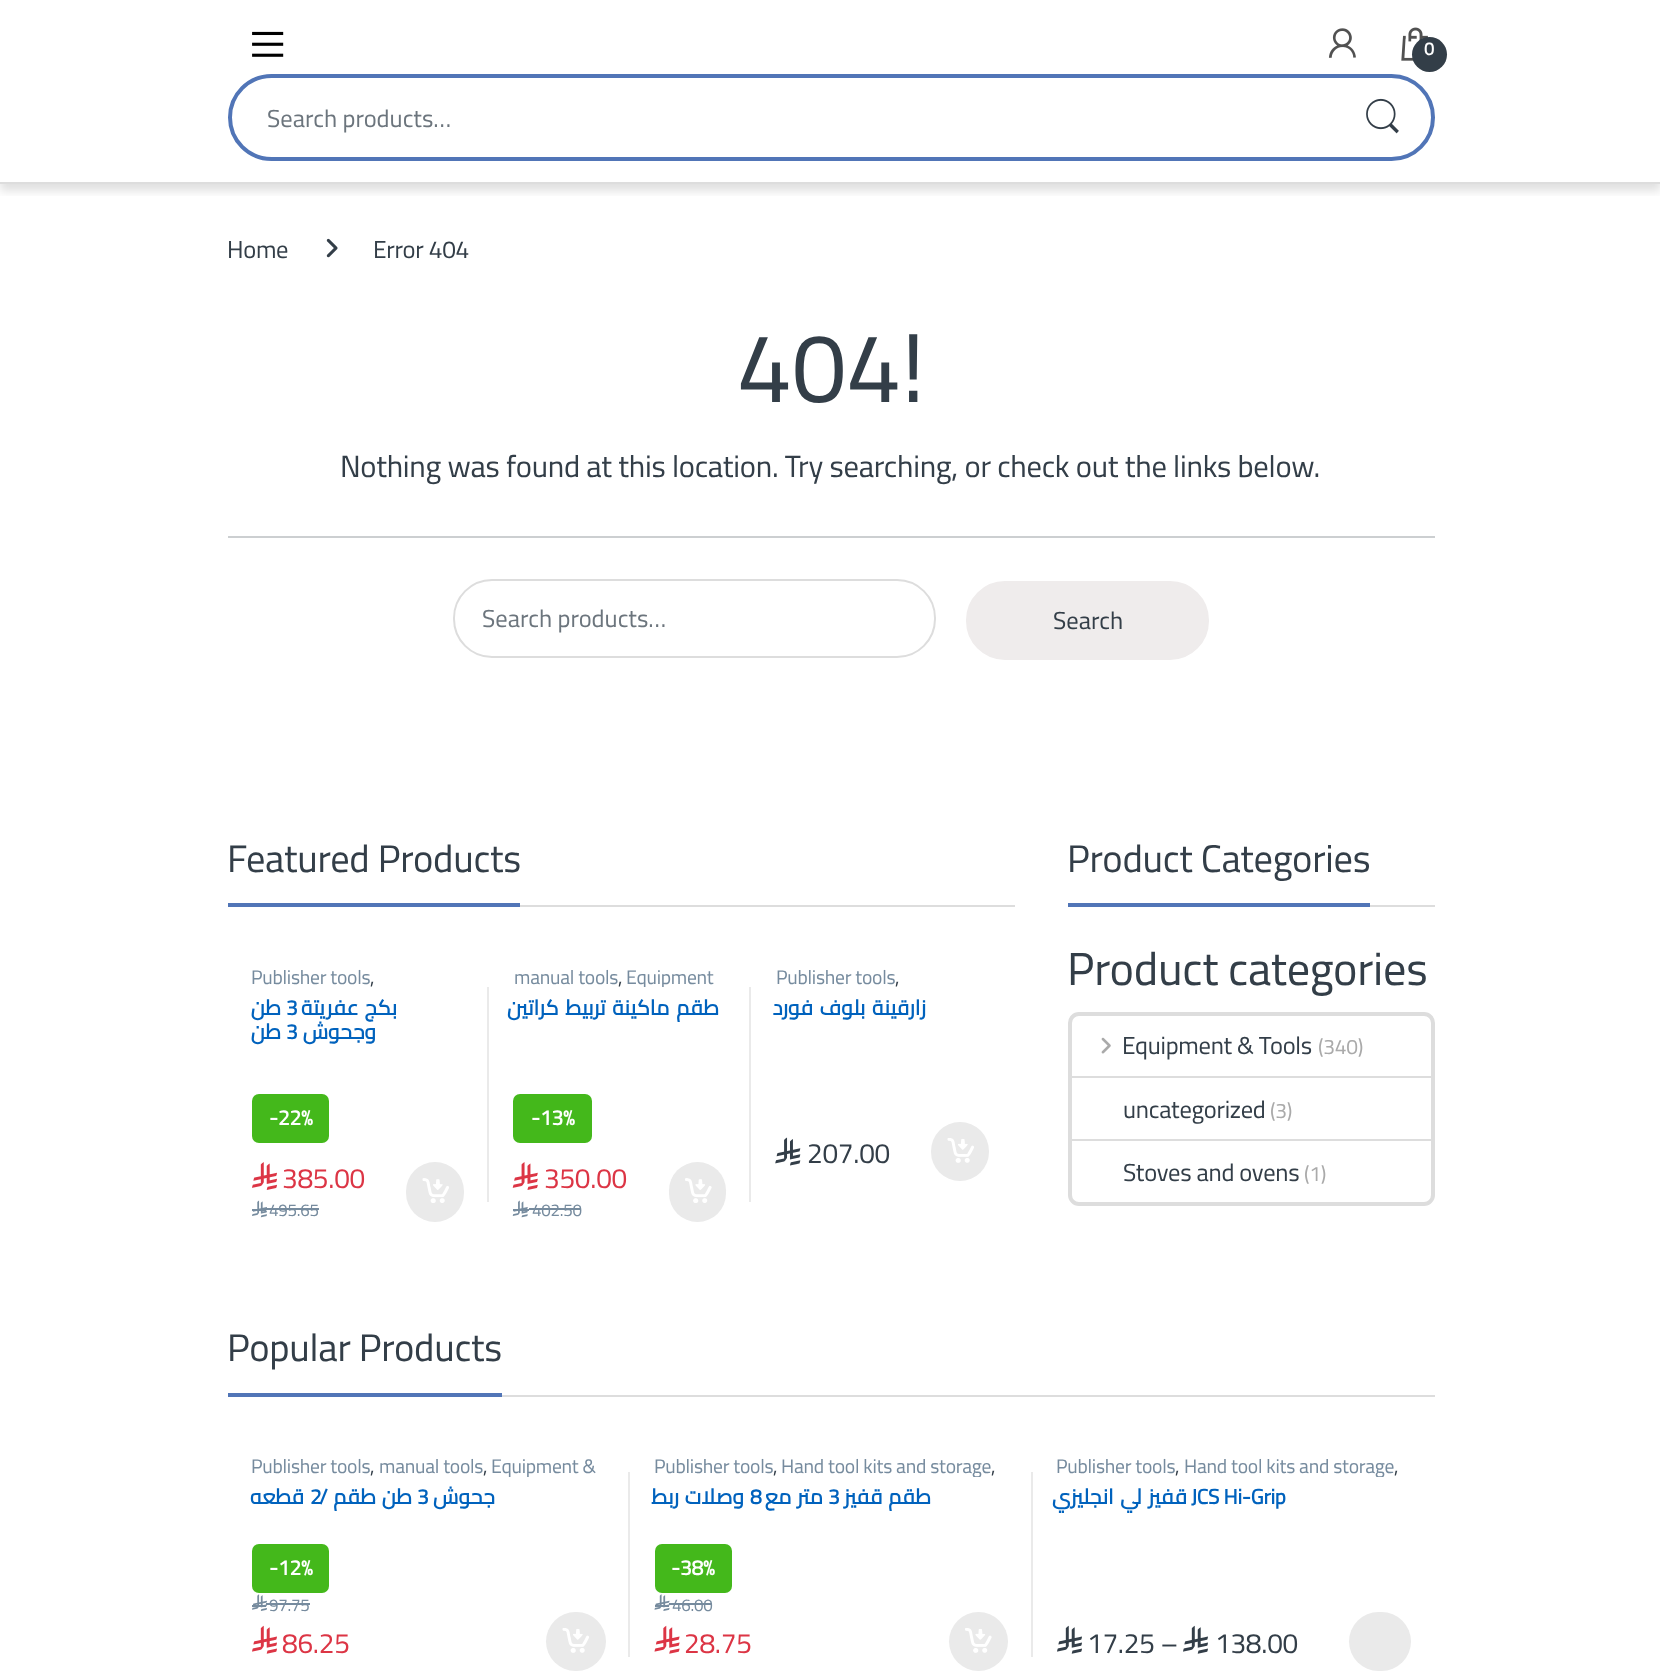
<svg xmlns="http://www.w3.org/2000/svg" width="1660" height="1679">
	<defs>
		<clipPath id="clip1"><rect x="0" y="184" width="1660" height="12" /></clipPath>
		<clipPath id="clip2"><rect x="513" y="966" width="213" height="21" /></clipPath>
		<clipPath id="clip3"><rect x="252" y="1456" width="354" height="21" /></clipPath>
		<clipPath id="clip4"><rect x="655" y="1456" width="353" height="21" /></clipPath>
		<clipPath id="clip5"><rect x="1057" y="1456" width="354" height="21" /></clipPath>
	</defs>
	<rect width="100%" height="100%" fill="#FFFFFF" />
	<g clip-path="url(#clip1)">
		<rect x="0" y="7" width="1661" height="184" fill="#000000" fill-opacity="0.12" filter="blur(5px)" />
	</g>
	<rect x="0" y="182" width="1660" height="2" fill="#DDDDDD" />
	<image x="252" y="31" width="32" height="26" href="assets/img1.png" />
	<image x="1328" y="28" width="28" height="30" href="assets/img2.png" />
	<image x="1401" y="27" width="27" height="34" href="assets/img3.png" />
	<circle cx="1429.5" cy="54.5" r="17.5" fill="#333E48" />
	<text x="1424" y="55" font-family="Cairo" font-size="18" font-weight="700" letter-spacing="-0.25" fill="#FFFFFF">0</text>
	<rect x="230" y="76" width="1203" height="83" rx="41.5" fill="none" stroke="#5175B7" stroke-width="4" />
	<text x="267" y="127" font-family="Cairo" font-size="24.5" fill="#6C757D">Search products…</text>
	<image x="1366" y="98" width="33" height="36" href="assets/img4.png" />
	<text x="227" y="258" font-family="Cairo" font-size="24.5" letter-spacing="-0.25" fill="#333E48">Home</text>
	<image x="326" y="238" width="12" height="20" href="assets/img5.png" />
	<text x="373" y="258" font-family="Cairo" font-size="24.5" letter-spacing="-0.25" fill="#333E48">Error 404</text>
	<text x="737" y="402" font-family="Cairo" font-size="98" letter-spacing="-0.25" fill="#333E48">404!</text>
	<text x="340" y="477" font-family="Cairo" font-size="30.6" letter-spacing="-0.25" fill="#333E48">Nothing was found at this location. Try searching, or check out the links below.</text>
	<rect x="228" y="536" width="1207" height="2" fill="#CCCFD1" />
	<rect x="454" y="580" width="481" height="77" rx="38" fill="none" stroke="#DDDDDD" stroke-width="2" />
	<text x="482" y="627" font-family="Cairo" font-size="24.5" fill="#6C757D">Search products…</text>
	<rect x="967" y="582" width="241" height="77" rx="38" fill="#EFECEC" stroke="#EFECEC" stroke-width="2" />
	<text x="1053" y="629" font-family="Cairo" font-size="24.5" fill="#333E48">Search</text>
	<rect x="520" y="905" width="495" height="2" fill="#DDDDDD" />
	<text x="227" y="872" font-family="Cairo" font-size="38.5" letter-spacing="-0.25" fill="#333E48">Featured Products</text>
	<rect x="228" y="903" width="292" height="4" fill="#5175B7" />
	<text x="251" y="984" font-family="Cairo" font-size="19.6" letter-spacing="-0.25" fill="#768B9E">Publisher tools</text>
	<text x="370" y="984" font-family="Cairo" font-size="19.6" letter-spacing="-0.25" fill="#333E48">,</text>
	<text x="281" y="1015" font-family="Cairo" font-size="21" font-weight="700" letter-spacing="-0.25" direction="rtl" fill="#0062BD">طن</text>
	<text x="286" y="1015" font-family="Cairo" font-size="21" font-weight="700" letter-spacing="-0.25" fill="#0062BD">3</text>
	<g font-family="Cairo" font-size="21" font-weight="700" letter-spacing="-0.25" direction="rtl" fill="#0062BD">
		<text x="397" y="1015" word-spacing="1">بكج عفريتة</text>
		<text x="281" y="1039">طن</text>
	</g>
	<text x="286" y="1039" font-family="Cairo" font-size="21" font-weight="700" letter-spacing="-0.25" fill="#0062BD">3</text>
	<text x="376" y="1039" font-family="Cairo" font-size="21" font-weight="700" letter-spacing="-0.25" direction="rtl" fill="#0062BD">وجحوش</text>
	<rect x="252" y="1094" width="77" height="49" rx="7" fill="#44B81B" />
	<text x="269" y="1125" font-family="Cairo" font-size="21" font-weight="700" letter-spacing="-0.25" fill="#FFFFFF">-22%</text>
	<image x="252" y="1162" width="25" height="28" href="assets/img6.png" />
	<text x="282" y="1188" font-family="Cairo" font-size="28" letter-spacing="-0.25" fill="#DC3545">385.00</text>
	<image x="252" y="1200" width="15" height="18" href="assets/img7.png" />
	<text x="269" y="1216" font-family="Cairo" font-size="17" letter-spacing="-0.25" fill="#768B9E">495.65</text>
	<rect x="252" y="1209" width="14" height="2" fill="#768B9E" />
	<rect x="266" y="1208" width="53" height="2" fill="#768B9E" />
	<rect x="406" y="1162" width="58" height="60" rx="29" fill="#EAEAEA" />
	<image x="422" y="1178" width="27" height="25" href="assets/img8.png" />
	<rect x="487" y="987" width="2" height="215" fill="#EAEAEA" />
	<text x="514" y="984" font-family="Cairo" font-size="19.6" letter-spacing="-0.25" fill="#768B9E">manual tools</text>
	<text x="618" y="984" font-family="Cairo" font-size="19.6" letter-spacing="-0.25" fill="#333E48">,</text>
	<g clip-path="url(#clip2)">
		<text x="626" y="984" font-family="Cairo" font-size="19.6" letter-spacing="-0.25" fill="#768B9E">Equipment</text>
	</g>
	<text x="719" y="1015" word-spacing="2" font-family="Cairo" font-size="21" font-weight="700" letter-spacing="-0.25" direction="rtl" fill="#0062BD">طقم ماكينة تربيط كراتين</text>
	<rect x="513" y="1094" width="79" height="49" rx="7" fill="#44B81B" />
	<text x="531" y="1125" font-family="Cairo" font-size="21" font-weight="700" letter-spacing="-0.25" fill="#FFFFFF">-13%</text>
	<image x="512" y="1162" width="26" height="28" href="assets/img9.png" />
	<text x="544" y="1188" font-family="Cairo" font-size="28" letter-spacing="-0.25" fill="#DC3545">350.00</text>
	<image x="512" y="1200" width="16" height="18" href="assets/img10.png" />
	<text x="532" y="1216" font-family="Cairo" font-size="17" letter-spacing="-0.25" fill="#768B9E">402.50</text>
	<rect x="513" y="1209" width="16" height="2" fill="#768B9E" />
	<rect x="529" y="1208" width="52" height="2" fill="#768B9E" />
	<rect x="669" y="1162" width="57" height="60" rx="28.5" fill="#EAEAEA" />
	<image x="685" y="1178" width="27" height="25" href="assets/img11.png" />
	<rect x="749" y="987" width="2" height="215" fill="#EAEAEA" />
	<text x="776" y="984" font-family="Cairo" font-size="19.6" letter-spacing="-0.25" fill="#768B9E">Publisher tools</text>
	<text x="895" y="984" font-family="Cairo" font-size="19.6" letter-spacing="-0.25" fill="#333E48">,</text>
	<text x="926" y="1015" word-spacing="2" font-family="Cairo" font-size="21" font-weight="700" letter-spacing="-0.25" direction="rtl" fill="#0062BD">زارقينة بلوف فورد</text>
	<image x="775" y="1137" width="26" height="29" href="assets/img12.png" />
	<text x="807" y="1163" font-family="Cairo" font-size="28" letter-spacing="-0.25" fill="#333E48">207.00</text>
	<rect x="931" y="1122" width="58" height="59" rx="29" fill="#EAEAEA" />
	<image x="947" y="1138" width="27" height="25" href="assets/img13.png" />
	<rect x="1370" y="905" width="65" height="2" fill="#DDDDDD" />
	<text x="1067" y="872" font-family="Cairo" font-size="38.5" letter-spacing="-0.25" fill="#333E48">Product Categories</text>
	<rect x="1068" y="903" width="302" height="4" fill="#5175B7" />
	<text x="1067" y="985" font-family="Cairo" font-size="46.25" letter-spacing="-0.25" fill="#333E48">Product categories</text>
	<rect x="1070" y="1014" width="363" height="190" rx="9" fill="none" stroke="#DDDDDD" stroke-width="4" />
	<image x="1101" y="1037" width="10" height="17" href="assets/img14.png" />
	<text x="1122" y="1054" font-family="Cairo" font-size="24.5" letter-spacing="-0.25" fill="#333E48">Equipment &amp; Tools</text>
	<text x="1318" y="1054" font-family="Cairo" font-size="21" letter-spacing="-0.25" fill="#AAAAAA">(340)</text>
	<rect x="1071" y="1076" width="361" height="2" fill="#DDDDDD" />
	<text x="1123" y="1118" font-family="Cairo" font-size="24.5" letter-spacing="-0.25" fill="#333E48">uncategorized</text>
	<text x="1270" y="1118" font-family="Cairo" font-size="21" letter-spacing="-0.25" fill="#AAAAAA">(3)</text>
	<rect x="1071" y="1139" width="361" height="2" fill="#DDDDDD" />
	<text x="1123" y="1181" font-family="Cairo" font-size="24.5" letter-spacing="-0.25" fill="#333E48">Stoves and ovens</text>
	<text x="1304" y="1181" font-family="Cairo" font-size="21" letter-spacing="-0.25" fill="#AAAAAA">(1)</text>
	<rect x="502" y="1395" width="933" height="2" fill="#DDDDDD" />
	<text x="227" y="1361" font-family="Cairo" font-size="38.5" letter-spacing="-0.25" fill="#333E48">Popular Products</text>
	<rect x="228" y="1393" width="274" height="4" fill="#5175B7" />
	<text x="251" y="1473" font-family="Cairo" font-size="19.6" letter-spacing="-0.25" fill="#768B9E">Publisher tools</text>
	<text x="370" y="1473" font-family="Cairo" font-size="19.6" letter-spacing="-0.25" fill="#333E48">,</text>
	<text x="379" y="1473" font-family="Cairo" font-size="19.6" letter-spacing="-0.25" fill="#768B9E">manual tools</text>
	<text x="483" y="1473" font-family="Cairo" font-size="19.6" letter-spacing="-0.25" fill="#333E48">,</text>
	<g clip-path="url(#clip3)">
		<text x="491" y="1473" font-family="Cairo" font-size="19.6" letter-spacing="-0.25" fill="#768B9E">Equipment &amp;</text>
	</g>
	<text x="304" y="1504" font-family="Cairo" font-size="21" font-weight="700" letter-spacing="-0.25" direction="rtl" fill="#0062BD">قطعه</text>
	<text x="310" y="1504" font-family="Cairo" font-size="21" font-weight="700" letter-spacing="-0.25" fill="#0062BD">2</text>
	<text x="412" y="1504" word-spacing="1" font-family="Cairo" font-size="21" font-weight="700" letter-spacing="-0.25" direction="rtl" fill="#0062BD">طن طقم /</text>
	<text x="417" y="1504" font-family="Cairo" font-size="21" font-weight="700" letter-spacing="-0.25" fill="#0062BD">3</text>
	<text x="495" y="1504" font-family="Cairo" font-size="21" font-weight="700" letter-spacing="-0.25" direction="rtl" fill="#0062BD">جحوش</text>
	<rect x="252" y="1544" width="77" height="49" rx="7" fill="#44B81B" />
	<text x="269" y="1575" font-family="Cairo" font-size="21" font-weight="700" letter-spacing="-0.25" fill="#FFFFFF">-12%</text>
	<image x="252" y="1594" width="15" height="17" href="assets/img15.png" />
	<text x="269" y="1611" font-family="Cairo" font-size="17" letter-spacing="-0.25" fill="#768B9E">97.75</text>
	<rect x="252" y="1605" width="14" height="2" fill="#768B9E" />
	<rect x="266" y="1603" width="44" height="2" fill="#768B9E" />
	<image x="252" y="1625" width="25" height="29" href="assets/img16.png" />
	<text x="282" y="1653" font-family="Cairo" font-size="28" letter-spacing="-0.25" fill="#DC3545">86.25</text>
	<rect x="546" y="1612" width="60" height="59" rx="29.5" fill="#EAEAEA" />
	<image x="562" y="1628" width="27" height="25" href="assets/img13.png" />
	<rect x="628" y="1472" width="2" height="185" fill="#EAEAEA" />
	<text x="654" y="1473" font-family="Cairo" font-size="19.6" letter-spacing="-0.25" fill="#768B9E">Publisher tools</text>
	<text x="773" y="1473" font-family="Cairo" font-size="19.6" letter-spacing="-0.25" fill="#333E48">,</text>
	<g clip-path="url(#clip4)">
		<text x="781" y="1473" font-family="Cairo" font-size="19.6" letter-spacing="-0.25" fill="#768B9E">Hand tool kits and storage</text>
	</g>
	<text x="991" y="1473" font-family="Cairo" font-size="19.6" letter-spacing="-0.25" fill="#333E48">,</text>
	<text x="744" y="1504" word-spacing="1" font-family="Cairo" font-size="21" font-weight="700" letter-spacing="-0.25" direction="rtl" fill="#0062BD">وصلات ربط</text>
	<text x="750" y="1504" font-family="Cairo" font-size="21" font-weight="700" letter-spacing="-0.25" fill="#0062BD">8</text>
	<text x="823" y="1504" word-spacing="1" font-family="Cairo" font-size="21" font-weight="700" letter-spacing="-0.25" direction="rtl" fill="#0062BD">متر مع</text>
	<text x="828" y="1504" font-family="Cairo" font-size="21" font-weight="700" letter-spacing="-0.25" fill="#0062BD">3</text>
	<text x="931" y="1504" word-spacing="1" font-family="Cairo" font-size="21" font-weight="700" letter-spacing="-0.25" direction="rtl" fill="#0062BD">طقم قفيز</text>
	<rect x="655" y="1544" width="77" height="49" rx="7" fill="#44B81B" />
	<text x="671" y="1575" font-family="Cairo" font-size="21" font-weight="700" letter-spacing="-0.25" fill="#FFFFFF">-38%</text>
	<image x="654" y="1594" width="16" height="17" href="assets/img17.png" />
	<text x="672" y="1611" font-family="Cairo" font-size="17" letter-spacing="-0.25" fill="#768B9E">46.00</text>
	<rect x="655" y="1605" width="14" height="2" fill="#768B9E" />
	<rect x="669" y="1603" width="43" height="2" fill="#768B9E" />
	<image x="654" y="1625" width="26" height="29" href="assets/img18.png" />
	<text x="684" y="1653" font-family="Cairo" font-size="28" letter-spacing="-0.25" fill="#DC3545">28.75</text>
	<circle cx="978.5" cy="1641.5" r="29.5" fill="#EAEAEA" />
	<image x="965" y="1628" width="27" height="25" href="assets/img19.png" />
	<rect x="1031" y="1472" width="2" height="185" fill="#EAEAEA" />
	<text x="1056" y="1473" font-family="Cairo" font-size="19.6" letter-spacing="-0.25" fill="#768B9E">Publisher tools</text>
	<text x="1175" y="1473" font-family="Cairo" font-size="19.6" letter-spacing="-0.25" fill="#333E48">,</text>
	<g clip-path="url(#clip5)">
		<text x="1184" y="1473" font-family="Cairo" font-size="19.6" letter-spacing="-0.25" fill="#768B9E">Hand tool kits and storage</text>
	</g>
	<text x="1394" y="1473" font-family="Cairo" font-size="19.6" letter-spacing="-0.25" fill="#333E48">,</text>
	<text x="1187" y="1504" word-spacing="2" font-family="Cairo" font-size="21" font-weight="700" letter-spacing="-0.25" direction="rtl" fill="#0062BD">قفيز لي انجليزي</text>
	<text x="1191" y="1504" font-family="Cairo" font-size="21" font-weight="700" letter-spacing="-0.25" fill="#0062BD">JCS Hi-Grip</text>
	<image x="1057" y="1625" width="25" height="29" href="assets/img20.png" />
	<text x="1087" y="1653" font-family="Cairo" font-size="28" letter-spacing="-0.25" fill="#333E48">17.25 –</text>
	<image x="1183" y="1625" width="25" height="29" href="assets/img20.png" />
	<text x="1215" y="1653" font-family="Cairo" font-size="28" letter-spacing="-0.25" fill="#333E48">138.00</text>
	<rect x="1349" y="1612" width="62" height="59" rx="29.5" fill="#EAEAEA" />
</svg>
